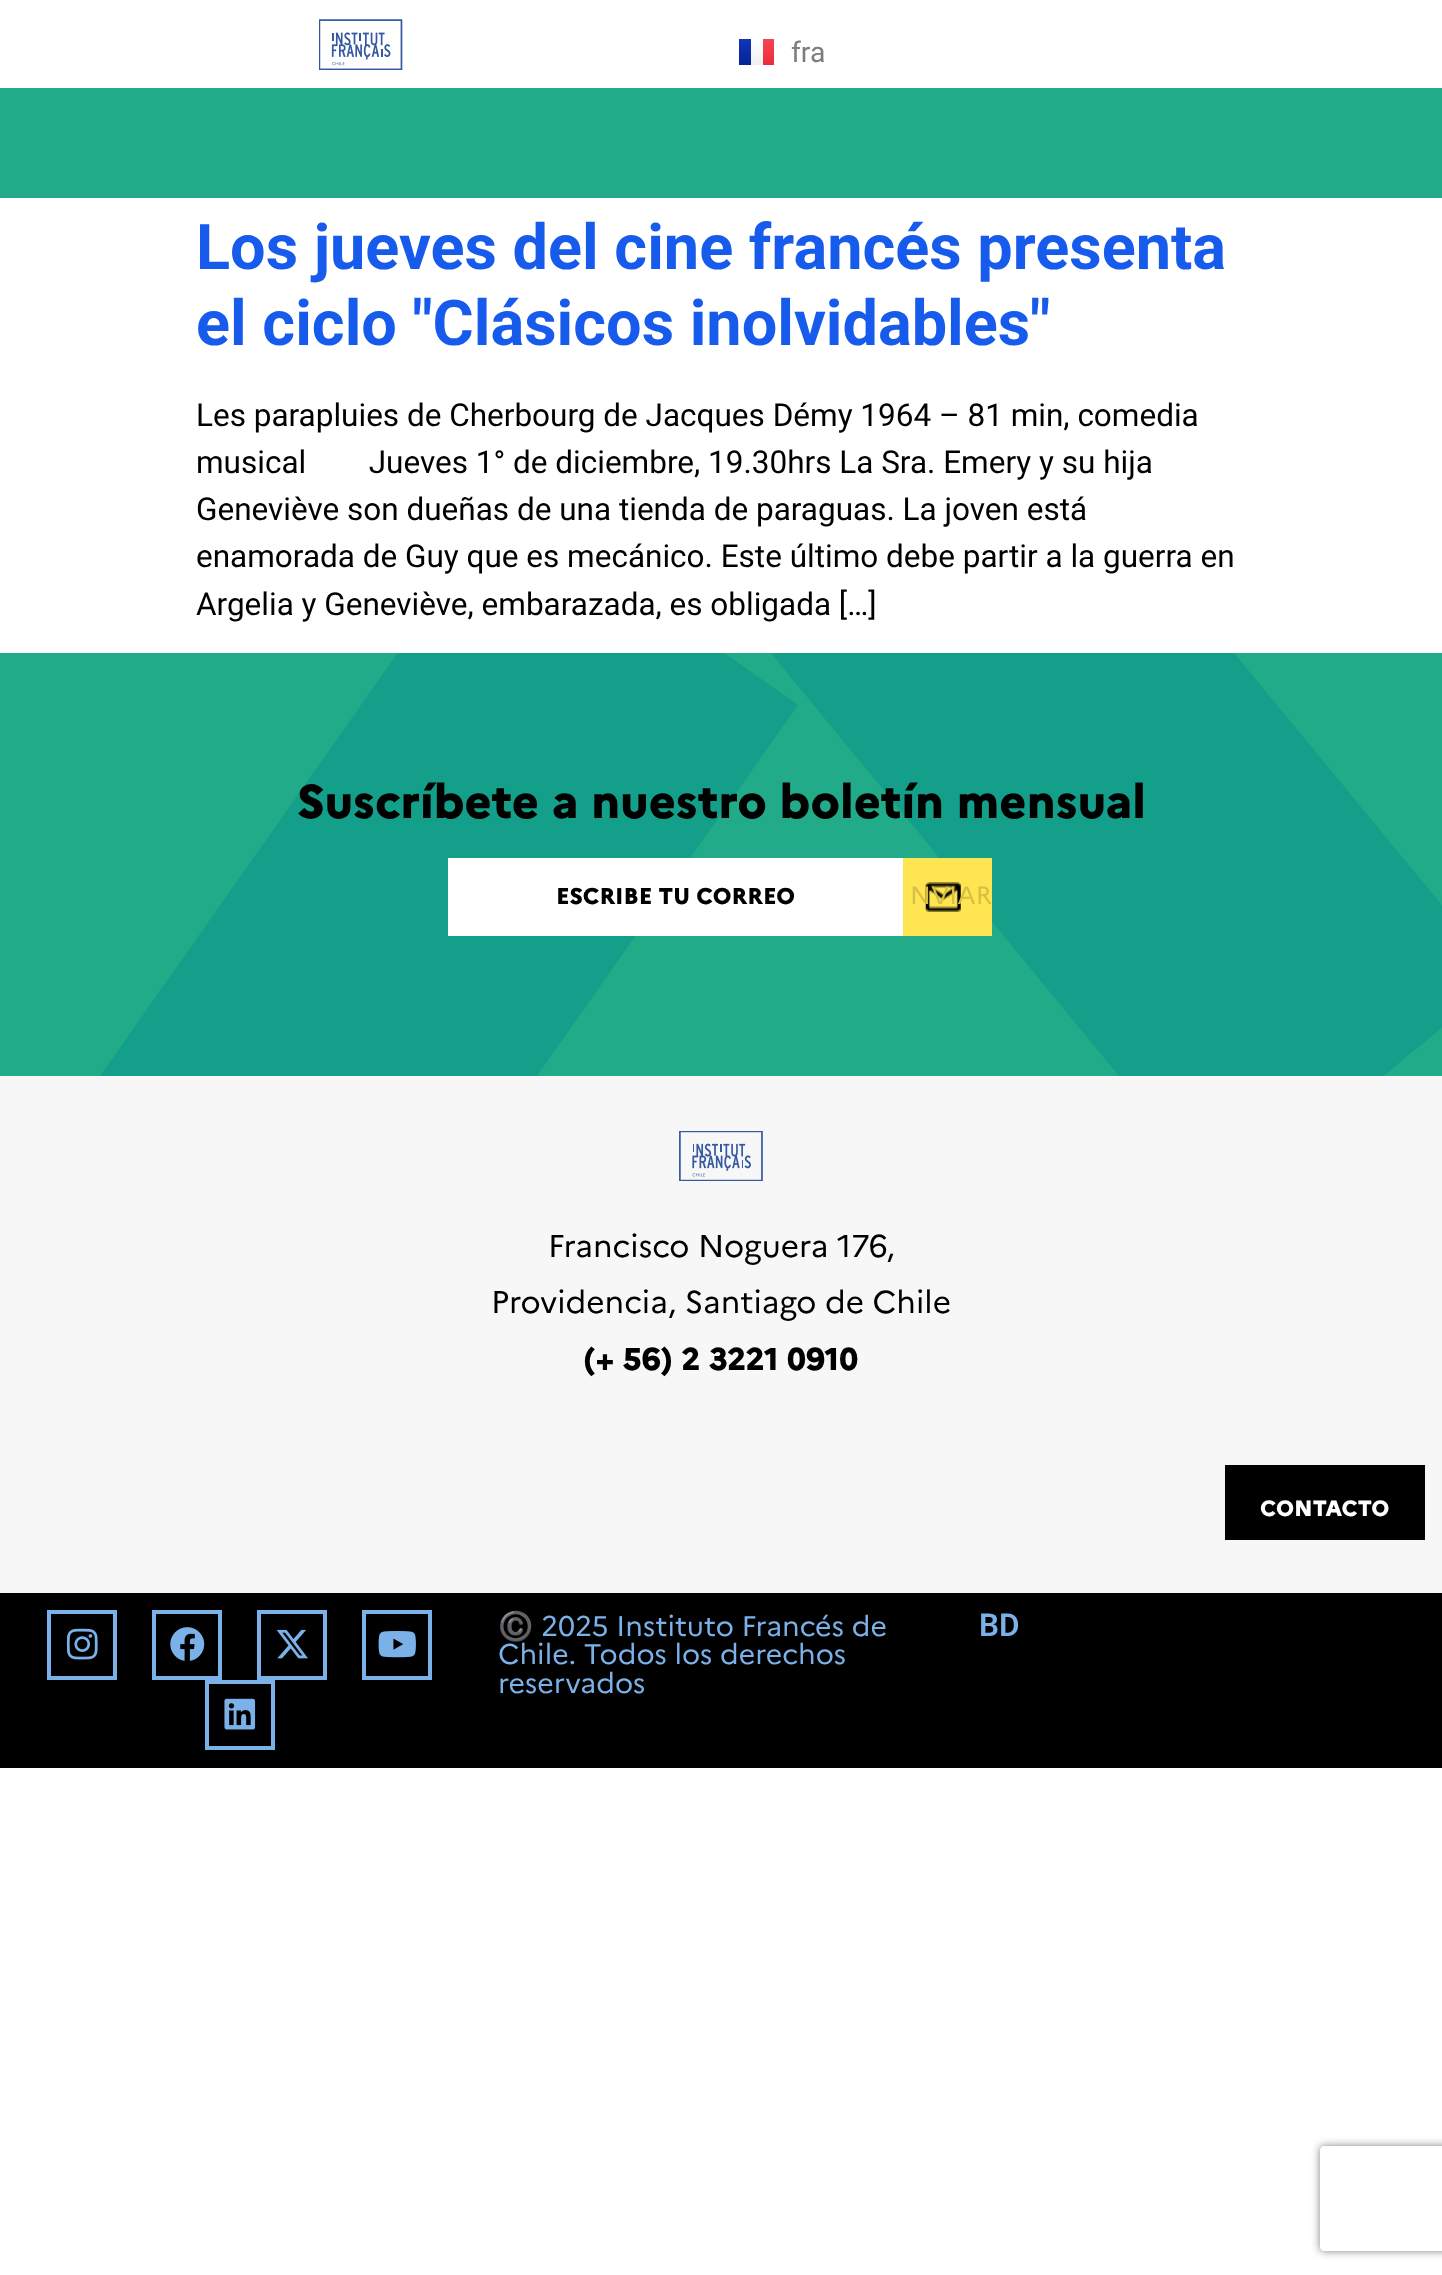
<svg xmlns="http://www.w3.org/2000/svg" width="1442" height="2275">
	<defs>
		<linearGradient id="g1" gradientUnits="userSpaceOnUse" x1="745" y1="39" x2="745" y2="65"><stop offset="0" stop-color="#1035BB" /><stop offset="1" stop-color="#042396" /></linearGradient>
		<linearGradient id="g2" gradientUnits="userSpaceOnUse" x1="757" y1="39" x2="757" y2="65"><stop offset="0" stop-color="#FFFFFF" /><stop offset="1" stop-color="#F0F0F0" /></linearGradient>
		<linearGradient id="g3" gradientUnits="userSpaceOnUse" x1="766" y1="39" x2="766" y2="65"><stop offset="0" stop-color="#F44653" /><stop offset="1" stop-color="#EE2A39" /></linearGradient>
		<clipPath id="clip1"><rect x="0" y="653" width="1442" height="423" /></clipPath>
		<clipPath id="clip2"><path d="M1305 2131H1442V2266H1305ZM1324 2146H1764C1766 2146 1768 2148 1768 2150V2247C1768 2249 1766 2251 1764 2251H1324C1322 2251 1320 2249 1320 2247V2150C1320 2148 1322 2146 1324 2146Z" clip-rule="evenodd" /></clipPath>
	</defs>
	<rect width="100%" height="100%" fill="#FFFFFF" />
	<image x="319" y="19" width="84" height="51" href="assets/img1.png" />
	<rect x="739" y="39" width="12" height="26" fill="url(#g1)" />
	<rect x="751" y="43" width="12" height="22" fill="url(#g2)" />
	<rect x="763" y="39" width="11" height="26" fill="url(#g3)" />
	<text x="791" y="62" font-family="Roboto" font-size="28.4" fill="#7D7D7D">fra</text>
	<rect x="0" y="88" width="1442" height="110" fill="#21AB88" />
	<g font-family="Roboto" font-size="63" font-weight="700" fill="#175BEC">
		<text x="196" y="269">Los jueves del cine francés presenta</text>
		<text x="196" y="345">el ciclo "Clásicos inolvidables"</text>
	</g>
	<g font-family="Roboto" font-size="31.5" fill="#000000">
		<text x="196" y="426">Les parapluies de Cherbourg de Jacques Démy 1964 – 81 min, comedia</text>
		<text x="196" y="473" xml:space="preserve">musical        Jueves 1° de diciembre, 19.30hrs La Sra. Emery y su hija</text>
		<text x="196" y="520">Geneviève son dueñas de una tienda de paraguas. La joven está</text>
		<text x="196" y="567">enamorada de Guy que es mecánico. Este último debe partir a la guerra en</text>
		<text x="196" y="615">Argelia y Geneviève, embarazada, es obligada […]</text>
	</g>
	<rect x="0" y="653" width="1442" height="423" fill="#21AB88" />
	<g clip-path="url(#clip1)">
		<path d="M506 499L798 705L233 1508L-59 1302Z" fill="#149F8A" />
		<path d="M602 448L878 221L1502 978L1226 1206Z" fill="#149F8A" />
	</g>
	<text x="297" y="818" font-family="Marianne" font-size="47.25" font-weight="800" fill="#000000">Suscríbete a nuestro boletín mensual</text>
	<rect x="448" y="858" width="455" height="78" fill="#FFFFFF" />
	<text x="556" y="904" font-family="Marianne" font-size="22.75" font-weight="800" fill="#000000">ESCRIBE TU CORREO</text>
	<rect x="903" y="858" width="89" height="78" fill="#FFE552" />
	<image x="925" y="882" width="36" height="30" href="assets/img2.png" />
	<text x="910" y="904" font-family="Marianne" font-size="25" fill="#D5BF44">NVIAR</text>
	<rect x="0" y="1076" width="1442" height="517" fill="#F7F7F7" />
	<image x="679" y="1131" width="84" height="50" href="assets/img3.png" />
	<g font-family="Marianne" font-size="31.5" fill="#000000">
		<text x="548" y="1257">Francisco Noguera 176,</text>
		<text x="491" y="1313">Providencia, Santiago de Chile</text>
	</g>
	<text x="583" y="1370" font-family="Marianne" font-size="31.5" font-weight="800" fill="#000000">(+ 56) 2 3221 0910</text>
	<rect x="1225" y="1465" width="200" height="75" fill="#000000" />
	<text x="1260" y="1516" font-family="Marianne" font-size="22" font-weight="800" fill="#FFFFFF">CONTACTO</text>
	<rect x="0" y="1593" width="1442" height="175" fill="#000000" />
	<rect x="49" y="1612" width="66" height="66" fill="none" stroke="#7AB1E8" stroke-width="4" />
	<image x="66" y="1628" width="32" height="32" href="assets/img4.png" />
	<rect x="154" y="1612" width="66" height="66" fill="none" stroke="#7AB1E8" stroke-width="4" />
	<image x="170" y="1627" width="35" height="34" href="assets/img5.png" />
	<rect x="259" y="1612" width="66" height="66" fill="none" stroke="#7AB1E8" stroke-width="4" />
	<image x="276" y="1629" width="32" height="30" href="assets/img6.png" />
	<rect x="364" y="1612" width="66" height="66" fill="none" stroke="#7AB1E8" stroke-width="4" />
	<image x="378" y="1631" width="38" height="27" href="assets/img7.png" />
	<rect x="207" y="1682" width="66" height="66" fill="none" stroke="#7AB1E8" stroke-width="4" />
	<image x="224" y="1698" width="32" height="32" href="assets/img8.png" />
	<text x="498" y="1636" font-family="Noto Color Emoji" font-size="28.4" fill="#7AB1E8">©️</text>
	<g font-family="Marianne" font-size="28.4" fill="#7AB1E8">
		<text x="541" y="1636">2025 Instituto Francés de</text>
		<text x="498" y="1664">Chile. Todos los derechos</text>
		<text x="498" y="1693">reservados</text>
	</g>
	<text x="979" y="1636" font-family="Roboto" font-size="31.5" font-weight="600" fill="#7AB1E8">BD</text>
	<g clip-path="url(#clip2)">
		<rect x="1320" y="2146" width="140" height="105" rx="4" fill="#808080" filter="blur(4.5px)" />
	</g>
</svg>
